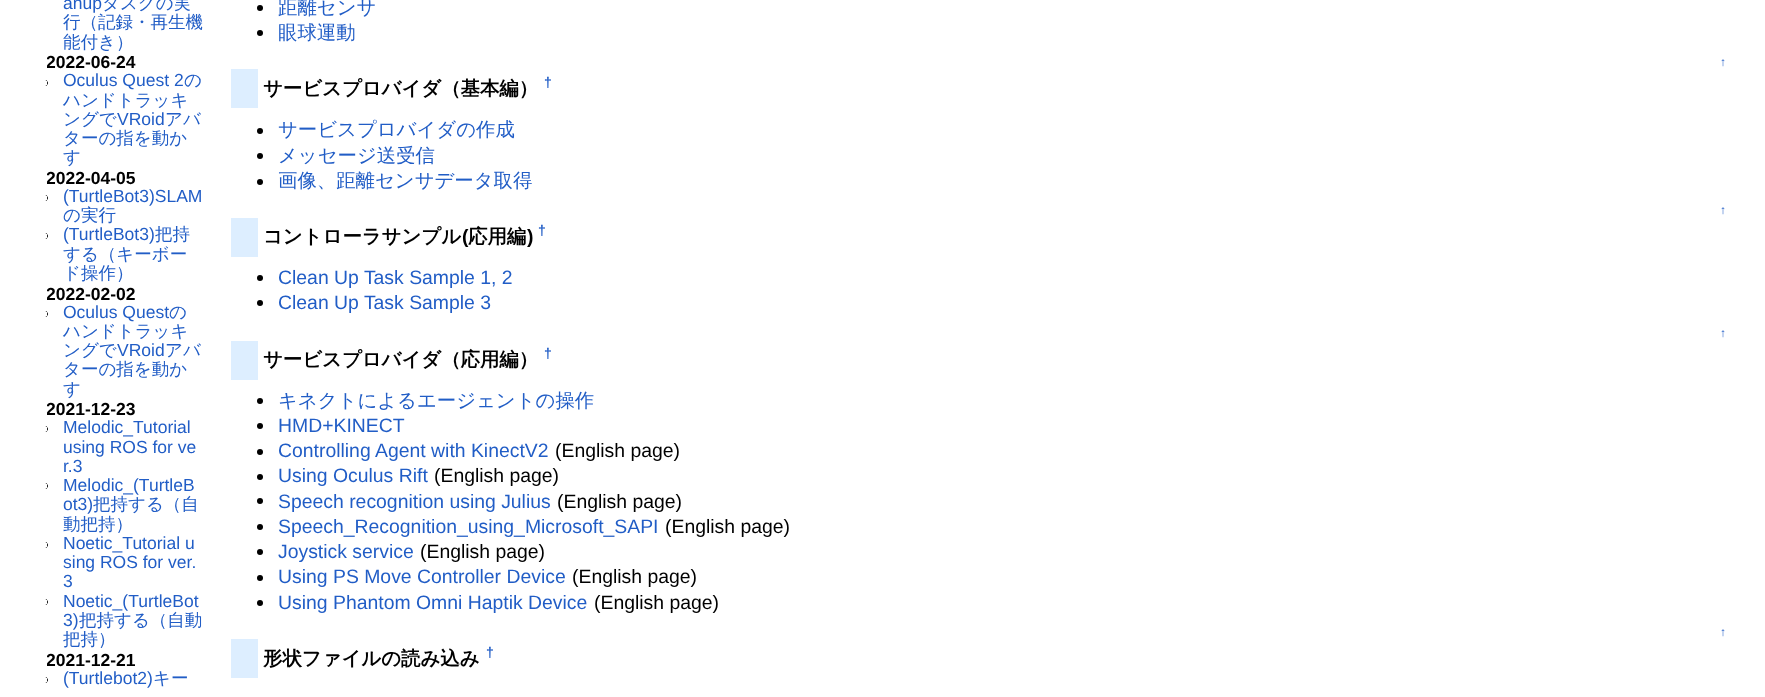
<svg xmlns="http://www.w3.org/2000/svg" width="1765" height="697">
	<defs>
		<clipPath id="clip1"><rect x="47" y="0" width="157" height="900" /></clipPath>
	</defs>
	<rect width="100%" height="100%" fill="#FFFFFF" />
	<text x="63" y="9" font-family="Liberation Sans" font-size="17.5" fill="#215DC6">anup</text>
	<g font-family="WenQuanYi Zen Hei" font-size="17.5" font-weight="500" fill="#215DC6">
		<text x="102" y="9">タスクの実</text>
		<text x="63" y="28">行（記録・再生機</text>
		<text x="63" y="48">能付き）</text>
	</g>
	<g clip-path="url(#clip1)">
		<text x="46" y="68" font-family="Liberation Sans" font-size="17.5" font-weight="700" fill="#000000">2022-06-24</text>
	</g>
	<path d="M47 80H45C46.5 80 48 81.5 48 83C48 84.5 46.5 86 45 86H47Z" fill="#000000" />
	<text x="63" y="86" font-family="Liberation Sans" font-size="17.5" fill="#215DC6">Oculus Quest 2</text>
	<g font-family="WenQuanYi Zen Hei" font-size="17.5" font-weight="500" fill="#215DC6">
		<text x="184" y="86">の</text>
		<text x="63" y="106">ハンドトラッキ</text>
		<text x="63" y="125">ングで</text>
	</g>
	<text x="117" y="125" font-family="Liberation Sans" font-size="17.5" fill="#215DC6">VRoid</text>
	<g font-family="WenQuanYi Zen Hei" font-size="17.5" font-weight="500" fill="#215DC6">
		<text x="165" y="125">アバ</text>
		<text x="63" y="144">ターの指を動か</text>
		<text x="63" y="163">す</text>
	</g>
	<g clip-path="url(#clip1)">
		<text x="46" y="184" font-family="Liberation Sans" font-size="17.5" font-weight="700" fill="#000000">2022-04-05</text>
	</g>
	<path d="M47 195H45C46.5 195 48 196.5 48 198C48 199.5 46.5 201 45 201H47Z" fill="#000000" />
	<text x="63" y="202" font-family="Liberation Sans" font-size="17.5" fill="#215DC6">(TurtleBot3)SLAM</text>
	<text x="63" y="221" font-family="WenQuanYi Zen Hei" font-size="17.5" font-weight="500" fill="#215DC6">の実行</text>
	<path d="M47 233H45C46.5 233 48 234.5 48 236C48 237.5 46.5 239 45 239H47Z" fill="#000000" />
	<text x="63" y="240" font-family="Liberation Sans" font-size="17.5" fill="#215DC6">(TurtleBot3)</text>
	<g font-family="WenQuanYi Zen Hei" font-size="17.5" font-weight="500" fill="#215DC6">
		<text x="155" y="240">把持</text>
		<text x="63" y="260">する（キーボー</text>
		<text x="63" y="279">ド操作）</text>
	</g>
	<g clip-path="url(#clip1)">
		<text x="46" y="300" font-family="Liberation Sans" font-size="17.5" font-weight="700" fill="#000000">2022-02-02</text>
	</g>
	<path d="M47 311H45C46.5 311 48 312.5 48 314C48 315.5 46.5 317 45 317H47Z" fill="#000000" />
	<text x="63" y="318" font-family="Liberation Sans" font-size="17.5" fill="#215DC6">Oculus Quest</text>
	<g font-family="WenQuanYi Zen Hei" font-size="17.5" font-weight="500" fill="#215DC6">
		<text x="169" y="318">の</text>
		<text x="63" y="337">ハンドトラッキ</text>
		<text x="63" y="356">ングで</text>
	</g>
	<text x="117" y="356" font-family="Liberation Sans" font-size="17.5" fill="#215DC6">VRoid</text>
	<g font-family="WenQuanYi Zen Hei" font-size="17.5" font-weight="500" fill="#215DC6">
		<text x="165" y="356">アバ</text>
		<text x="63" y="375">ターの指を動か</text>
		<text x="63" y="395">す</text>
	</g>
	<g clip-path="url(#clip1)">
		<text x="46" y="415" font-family="Liberation Sans" font-size="17.5" font-weight="700" fill="#000000">2021-12-23</text>
	</g>
	<path d="M47 426H45C46.5 426 48 427.5 48 429C48 430.5 46.5 432 45 432H47Z" fill="#000000" />
	<g font-family="Liberation Sans" font-size="17.5" fill="#215DC6">
		<text x="63" y="433">Melodic_Tutorial</text>
		<text x="63" y="453">using ROS for ve</text>
		<text x="63" y="472">r.3</text>
	</g>
	<path d="M47 483H45C46.5 483 48 484.5 48 486C48 487.5 46.5 489 45 489H47Z" fill="#000000" />
	<g font-family="Liberation Sans" font-size="17.5" fill="#215DC6">
		<text x="63" y="491">Melodic_(TurtleB</text>
		<text x="63" y="510">ot3)</text>
	</g>
	<g font-family="WenQuanYi Zen Hei" font-size="17.5" font-weight="500" fill="#215DC6">
		<text x="93" y="510">把持する（自</text>
		<text x="63" y="530">動把持）</text>
	</g>
	<path d="M47 542H45C46.5 542 48 543.5 48 545C48 546.5 46.5 548 45 548H47Z" fill="#000000" />
	<g font-family="Liberation Sans" font-size="17.5" fill="#215DC6">
		<text x="63" y="549">Noetic_Tutorial u</text>
		<text x="63" y="568">sing ROS for ver.</text>
		<text x="63" y="587">3</text>
	</g>
	<path d="M47 599H45C46.5 599 48 600.5 48 602C48 603.5 46.5 605 45 605H47Z" fill="#000000" />
	<g font-family="Liberation Sans" font-size="17.5" fill="#215DC6">
		<text x="63" y="607">Noetic_(TurtleBot</text>
		<text x="63" y="626">3)</text>
	</g>
	<g font-family="WenQuanYi Zen Hei" font-size="17.5" font-weight="500" fill="#215DC6">
		<text x="79" y="626">把持する（自動</text>
		<text x="63" y="645">把持）</text>
	</g>
	<g clip-path="url(#clip1)">
		<text x="46" y="666" font-family="Liberation Sans" font-size="17.5" font-weight="700" fill="#000000">2021-12-21</text>
	</g>
	<path d="M47 677H45C46.5 677 48 678.5 48 680C48 681.5 46.5 683 45 683H47Z" fill="#000000" />
	<text x="63" y="684" font-family="Liberation Sans" font-size="17.5" fill="#215DC6">(Turtlebot2)</text>
	<text x="153" y="684" font-family="WenQuanYi Zen Hei" font-size="17.5" font-weight="500" fill="#215DC6">キー</text>
	<circle cx="260" cy="8" r="3" fill="#000000" />
	<text x="278" y="14" font-family="WenQuanYi Zen Hei" font-size="19.4" font-weight="500" fill="#215DC6">距離センサ</text>
	<circle cx="260" cy="33" r="3" fill="#000000" />
	<text x="278" y="39" font-family="WenQuanYi Zen Hei" font-size="19.4" font-weight="500" fill="#215DC6">眼球運動</text>
	<text x="1720" y="66" font-family="Liberation Sans" font-size="12" fill="#215DC6">↑</text>
	<rect x="231" y="69" width="27" height="39" fill="#DDEEFF" />
	<text x="263" y="95" font-family="WenQuanYi Zen Hei" font-size="19.4" font-weight="700" fill="#000000">サービスプロバイダ（基本編）</text>
	<text x="544" y="87" font-family="Liberation Sans" font-size="14" font-weight="700" fill="#215DC6">†</text>
	<circle cx="260" cy="131" r="3" fill="#000000" />
	<text x="278" y="136" font-family="WenQuanYi Zen Hei" font-size="19.4" font-weight="500" fill="#215DC6">サービスプロバイダの作成</text>
	<circle cx="260" cy="156" r="3" fill="#000000" />
	<text x="278" y="162" font-family="WenQuanYi Zen Hei" font-size="19.4" font-weight="500" fill="#215DC6">メッセージ送受信</text>
	<circle cx="260" cy="182" r="3" fill="#000000" />
	<text x="278" y="187" font-family="WenQuanYi Zen Hei" font-size="19.4" font-weight="500" fill="#215DC6">画像、距離センサデータ取得</text>
	<text x="1720" y="214" font-family="Liberation Sans" font-size="12" fill="#215DC6">↑</text>
	<rect x="231" y="218" width="27" height="39" fill="#DDEEFF" />
	<text x="263" y="243" font-family="WenQuanYi Zen Hei" font-size="19.4" font-weight="700" fill="#000000">コントローラサンプル</text>
	<text x="462" y="243" font-family="Liberation Sans" font-size="19.4" font-weight="700" fill="#000000">(</text>
	<text x="468" y="243" font-family="WenQuanYi Zen Hei" font-size="19.4" font-weight="700" fill="#000000">応用編</text>
	<text x="527" y="243" font-family="Liberation Sans" font-size="19.4" font-weight="700" fill="#000000">)</text>
	<text x="538" y="235" font-family="Liberation Sans" font-size="14" font-weight="700" fill="#215DC6">†</text>
	<circle cx="260" cy="278" r="3" fill="#000000" />
	<text x="278" y="284" font-family="Liberation Sans" font-size="19.4" fill="#215DC6">Clean Up Task Sample 1, 2</text>
	<circle cx="260" cy="303" r="3" fill="#000000" />
	<text x="278" y="309" font-family="Liberation Sans" font-size="19.4" fill="#215DC6">Clean Up Task Sample 3</text>
	<text x="1720" y="337" font-family="Liberation Sans" font-size="12" fill="#215DC6">↑</text>
	<rect x="231" y="341" width="27" height="39" fill="#DDEEFF" />
	<text x="263" y="366" font-family="WenQuanYi Zen Hei" font-size="19.4" font-weight="700" fill="#000000">サービスプロバイダ（応用編）</text>
	<text x="544" y="358" font-family="Liberation Sans" font-size="14" font-weight="700" fill="#215DC6">†</text>
	<circle cx="260" cy="401" r="3" fill="#000000" />
	<text x="278" y="407" font-family="WenQuanYi Zen Hei" font-size="19.4" font-weight="500" fill="#215DC6">キネクトによるエージェントの操作</text>
	<circle cx="260" cy="426" r="3" fill="#000000" />
	<text x="278" y="432" font-family="Liberation Sans" font-size="19.4" fill="#215DC6">HMD+KINECT</text>
	<circle cx="260" cy="452" r="3" fill="#000000" />
	<text x="278" y="457" font-family="Liberation Sans" font-size="19.4" fill="#215DC6">Controlling Agent with KinectV2</text>
	<text x="555" y="457" font-family="Liberation Sans" font-size="19.4" fill="#000000">(English page)</text>
	<circle cx="260" cy="477" r="3" fill="#000000" />
	<text x="278" y="482" font-family="Liberation Sans" font-size="19.4" fill="#215DC6">Using Oculus Rift</text>
	<text x="434" y="482" font-family="Liberation Sans" font-size="19.4" fill="#000000">(English page)</text>
	<circle cx="260" cy="501" r="3" fill="#000000" />
	<text x="278" y="508" font-family="Liberation Sans" font-size="19.4" fill="#215DC6">Speech recognition using Julius</text>
	<text x="557" y="508" font-family="Liberation Sans" font-size="19.4" fill="#000000">(English page)</text>
	<circle cx="260" cy="527" r="3" fill="#000000" />
	<text x="278" y="533" font-family="Liberation Sans" font-size="19.4" fill="#215DC6">Speech_Recognition_using_Microsoft_SAPI</text>
	<text x="665" y="533" font-family="Liberation Sans" font-size="19.4" fill="#000000">(English page)</text>
	<circle cx="260" cy="552" r="3" fill="#000000" />
	<text x="278" y="558" font-family="Liberation Sans" font-size="19.4" fill="#215DC6">Joystick service</text>
	<text x="420" y="558" font-family="Liberation Sans" font-size="19.4" fill="#000000">(English page)</text>
	<circle cx="260" cy="578" r="3" fill="#000000" />
	<text x="278" y="583" font-family="Liberation Sans" font-size="19.4" fill="#215DC6">Using PS Move Controller Device</text>
	<text x="572" y="583" font-family="Liberation Sans" font-size="19.4" fill="#000000">(English page)</text>
	<circle cx="260" cy="603" r="3" fill="#000000" />
	<text x="278" y="609" font-family="Liberation Sans" font-size="19.4" fill="#215DC6">Using Phantom Omni Haptik Device</text>
	<text x="594" y="609" font-family="Liberation Sans" font-size="19.4" fill="#000000">(English page)</text>
	<text x="1720" y="636" font-family="Liberation Sans" font-size="12" fill="#215DC6">↑</text>
	<rect x="231" y="639" width="27" height="39" fill="#DDEEFF" />
	<text x="263" y="665" font-family="WenQuanYi Zen Hei" font-size="19.4" font-weight="700" fill="#000000">形状ファイルの読み込み</text>
	<text x="486" y="657" font-family="Liberation Sans" font-size="14" font-weight="700" fill="#215DC6">†</text>
</svg>
